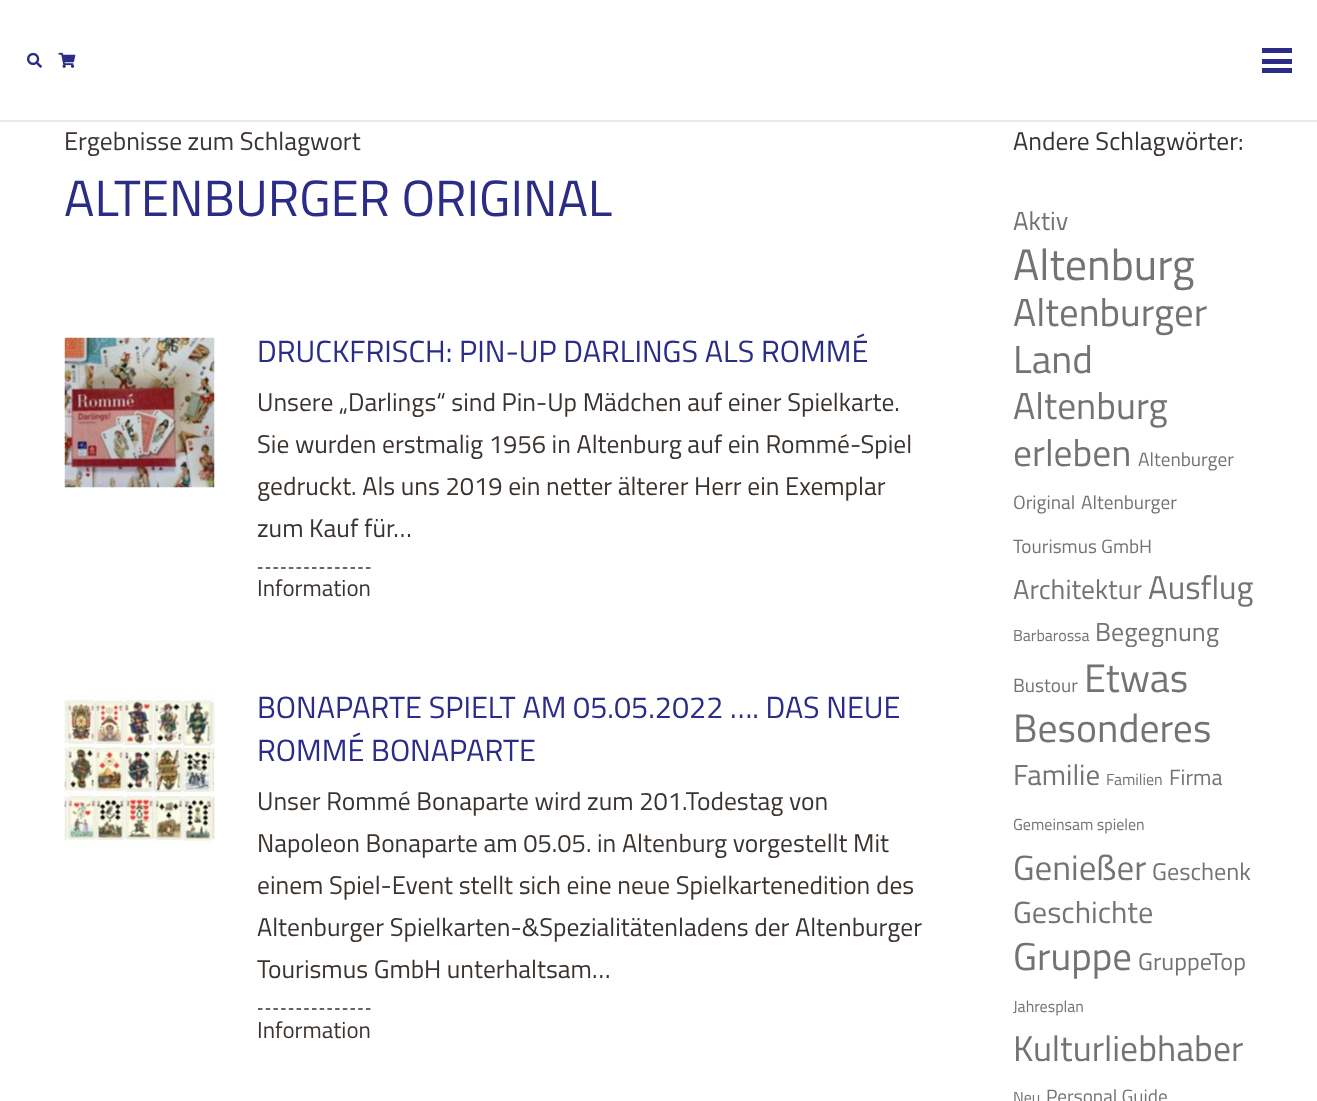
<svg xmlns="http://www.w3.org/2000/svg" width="1317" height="1101">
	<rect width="100%" height="100%" fill="#FFFFFF" />
	<rect x="0" y="120" width="1317" height="2" fill="#EBEBEB" />
	<image x="27" y="52" width="15" height="16" href="assets/img1.png" />
	<image x="58" y="52" width="18" height="16" href="assets/img2.png" />
	<rect x="1262" y="59" width="30" height="5" fill="#2B2C87" />
	<rect x="1262" y="48" width="30" height="5" fill="#2B2C87" />
	<rect x="1262" y="68" width="30" height="5" fill="#2B2C87" />
	<text x="64" y="150" font-family="Titillium Web" font-size="25.5" fill="#3A332F">Ergebnisse zum Schlagwort</text>
	<text x="64" y="216" font-family="Titillium Web" font-size="51" fill="#2B2C87">ALTENBURGER ORIGINAL</text>
	<image x="64" y="337" width="151" height="151" href="assets/img3.png" />
	<text x="257" y="362" font-family="Titillium Web" font-size="30.6" fill="#2B2C87">DRUCKFRISCH: PIN-UP DARLINGS ALS ROMMÉ</text>
	<g font-family="Titillium Web" font-size="25.5" fill="#3A332F">
		<text x="257" y="411">Unsere „Darlings“ sind Pin-Up Mädchen auf einer Spielkarte.</text>
		<text x="257" y="453">Sie wurden erstmalig 1956 in Altenburg auf ein Rommé-Spiel</text>
		<text x="257" y="495">gedruckt. Als uns 2019 ein netter älterer Herr ein Exemplar</text>
		<text x="257" y="537">zum Kauf für…</text>
	</g>
	<path d="M258 568H370.5" fill="none" stroke="#3A332F" stroke-width="1.5" stroke-dasharray="4.5 3.21" />
	<text x="257" y="596" font-family="Titillium Web" font-size="23" fill="#3A332F">Information</text>
	<image x="64" y="695" width="151" height="149" href="assets/img4.png" />
	<g font-family="Titillium Web" font-size="30.6" fill="#2B2C87">
		<text x="257" y="718">BONAPARTE SPIELT AM 05.05.2022 …. DAS NEUE</text>
		<text x="257" y="761">ROMMÉ BONAPARTE</text>
	</g>
	<g font-family="Titillium Web" font-size="25.5" fill="#3A332F">
		<text x="257" y="810">Unser Rommé Bonaparte wird zum 201.Todestag von</text>
		<text x="257" y="852">Napoleon Bonaparte am 05.05. in Altenburg vorgestellt Mit</text>
		<text x="257" y="894">einem Spiel-Event stellt sich eine neue Spielkartenedition des</text>
		<text x="257" y="936">Altenburger Spielkarten-&amp;Spezialitätenladens der Altenburger</text>
		<text x="257" y="978">Tourismus GmbH unterhaltsam…</text>
	</g>
	<path d="M258 1009H370.5" fill="none" stroke="#3A332F" stroke-width="1.5" stroke-dasharray="4.5 3.21" />
	<text x="257" y="1038" font-family="Titillium Web" font-size="23" fill="#3A332F">Information</text>
	<text x="1013" y="150" font-family="Titillium Web" font-size="25.5" fill="#3A332F">Andere Schlagwörter:</text>
	<text x="1013" y="230" font-family="Titillium Web" font-size="26" fill="#737373">Aktiv</text>
	<text x="1013" y="280" font-family="Titillium Web" font-size="44" fill="#737373">Altenburg</text>
	<g font-family="Titillium Web" font-size="39" fill="#737373">
		<text x="1013" y="326">Altenburger</text>
		<text x="1013" y="373">Land</text>
	</g>
	<g font-family="Titillium Web" font-size="37.5" fill="#737373">
		<text x="1013" y="419">Altenburg</text>
		<text x="1013" y="466">erleben</text>
	</g>
	<g font-family="Titillium Web" font-size="19.25" fill="#737373">
		<text x="1138" y="466">Altenburger</text>
		<text x="1013" y="509">Original</text>
		<text x="1081" y="509">Altenburger</text>
		<text x="1013" y="553">Tourismus GmbH</text>
	</g>
	<text x="1013" y="599" font-family="Titillium Web" font-size="27.5" fill="#737373">Architektur</text>
	<text x="1148" y="599" font-family="Titillium Web" font-size="33" fill="#737373">Ausflug</text>
	<text x="1013" y="641" font-family="Titillium Web" font-size="16" fill="#737373">Barbarossa</text>
	<text x="1095" y="641" font-family="Titillium Web" font-size="26" fill="#737373">Begegnung</text>
	<text x="1013" y="692" font-family="Titillium Web" font-size="19.25" fill="#737373">Bustour</text>
	<g font-family="Titillium Web" font-size="39.75" fill="#737373">
		<text x="1084" y="692">Etwas</text>
		<text x="1013" y="742">Besonderes</text>
	</g>
	<text x="1013" y="785" font-family="Titillium Web" font-size="29" fill="#737373">Familie</text>
	<text x="1106" y="785" font-family="Titillium Web" font-size="16" fill="#737373">Familien</text>
	<text x="1169" y="785" font-family="Titillium Web" font-size="22" fill="#737373">Firma</text>
	<text x="1013" y="830" font-family="Titillium Web" font-size="16" fill="#737373">Gemeinsam spielen</text>
	<text x="1013" y="880" font-family="Titillium Web" font-size="35" fill="#737373">Genießer</text>
	<text x="1152" y="880" font-family="Titillium Web" font-size="24.25" fill="#737373">Geschenk</text>
	<text x="1013" y="923" font-family="Titillium Web" font-size="30.5" fill="#737373">Geschichte</text>
	<text x="1013" y="970" font-family="Titillium Web" font-size="39" fill="#737373">Gruppe</text>
	<text x="1138" y="970" font-family="Titillium Web" font-size="24.25" fill="#737373">GruppeTop</text>
	<text x="1013" y="1012" font-family="Titillium Web" font-size="16" fill="#737373">Jahresplan</text>
	<text x="1013" y="1061" font-family="Titillium Web" font-size="35.75" fill="#737373">Kulturliebhaber</text>
	<text x="1013" y="1103" font-family="Titillium Web" font-size="16" fill="#737373">Neu</text>
	<text x="1046" y="1103" font-family="Titillium Web" font-size="19.25" fill="#737373">Personal Guide</text>
</svg>
